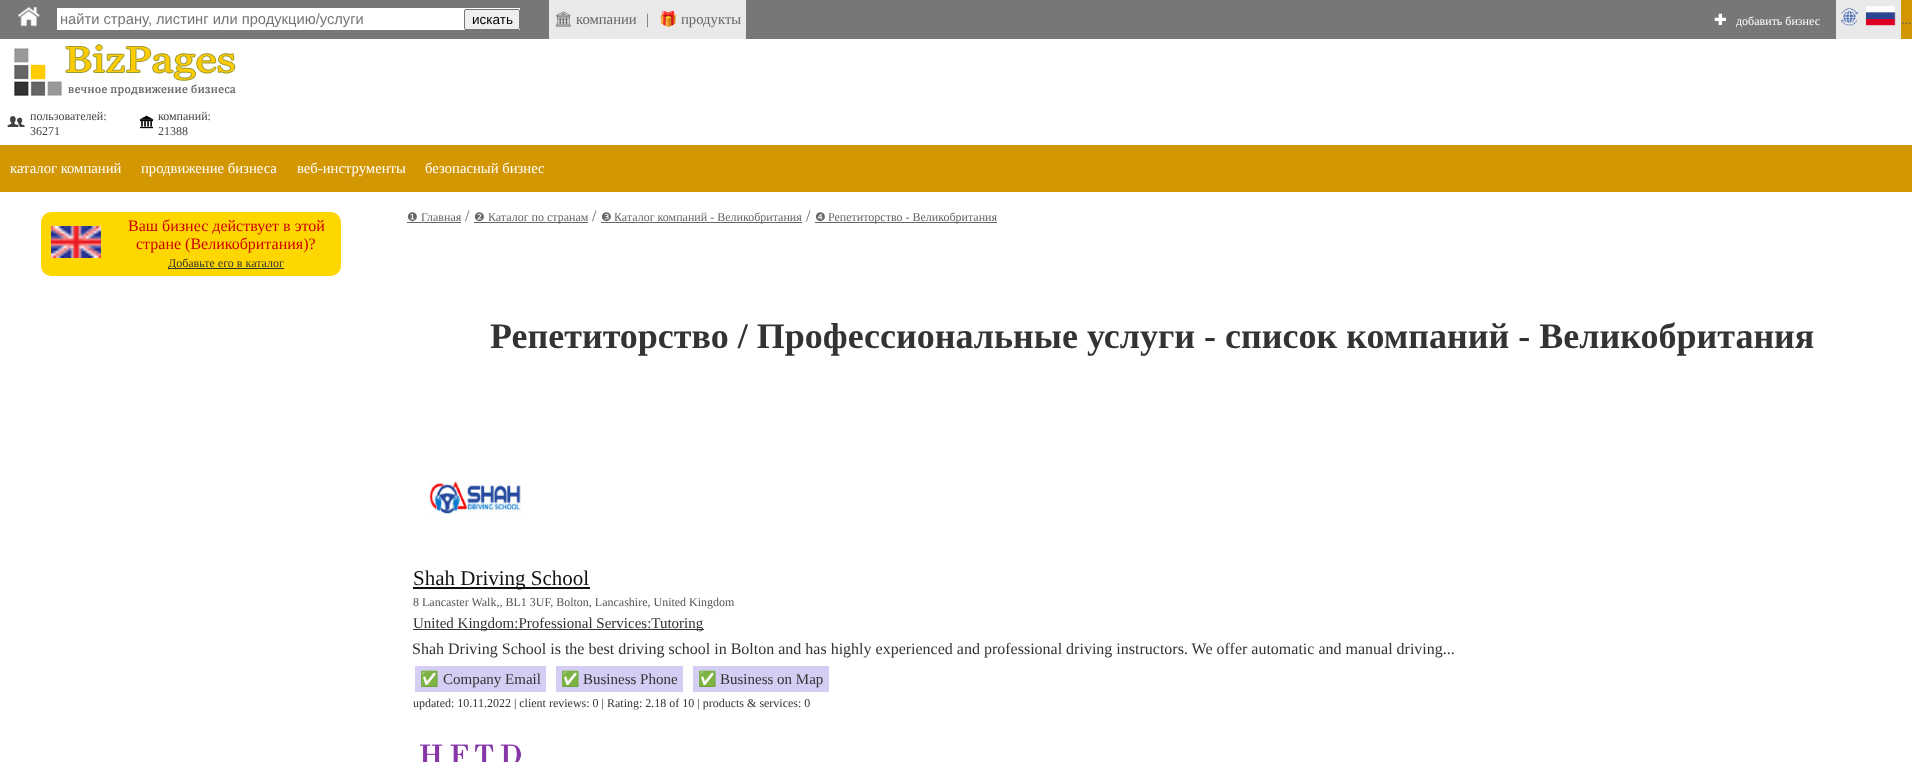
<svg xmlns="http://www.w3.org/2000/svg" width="1912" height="762">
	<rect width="100%" height="100%" fill="#FFFFFF" />
	<rect x="0" y="0" width="1836" height="39" fill="#777777" />
	<image x="17" y="6" width="23" height="21" href="assets/img1.png" />
	<rect x="57" y="8" width="463" height="22" fill="#FFFFFF" />
	<text x="60" y="24" font-family="Liberation Sans" font-size="14.7" fill="#757575">найти страну, листинг или продукцию/услуги</text>
	<rect x="464.5" y="9.5" width="55" height="20" rx="1.5" fill="#EFEFEF" stroke="#767676" />
	<text x="472" y="24" font-family="Liberation Sans" font-size="13.5" fill="#000000">искать</text>
	<rect x="549" y="0" width="197" height="39" fill="#E9E9E9" />
	<text x="554" y="24" font-family="Noto Emoji" font-size="14.7" fill="#666666">🏛</text>
	<g font-family="Liberation Serif" font-size="14.7" fill="#666666">
		<text x="576" y="24">компании</text>
		<text x="646" y="24">|</text>
	</g>
	<text x="659" y="24" font-family="Noto Color Emoji" font-size="14.7" fill="#666666">🎁</text>
	<text x="681" y="24" font-family="Liberation Serif" font-size="14.7" fill="#666666">продукты</text>
	<text x="1714" y="25" font-family="DejaVu Sans" font-size="14.7" font-weight="700" fill="#FFFFFF">✚</text>
	<text x="1736" y="25" font-family="Liberation Serif" font-size="12" fill="#FFFFFF">добавить бизнес</text>
	<rect x="1836" y="0" width="65" height="39" fill="#E9E9E9" />
	<image x="1841" y="6" width="55" height="20" href="assets/img2.png" />
	<rect x="1901" y="0" width="11" height="39" fill="#D39703" />
	<text x="1901" y="24" font-family="Liberation Serif" font-size="14.7" fill="#666666">...</text>
	<image x="14" y="44" width="222" height="52" href="assets/img3.png" />
	<image x="7" y="116" width="18" height="11" href="assets/img4.png" />
	<g font-family="Liberation Serif" font-size="12" fill="#444444">
		<text x="30" y="120">пользователей:</text>
		<text x="30" y="135">36271</text>
	</g>
	<image x="139" y="115" width="15" height="14" href="assets/img5.png" />
	<g font-family="Liberation Serif" font-size="12" fill="#444444">
		<text x="158" y="120">компаний:</text>
		<text x="158" y="135">21388</text>
	</g>
	<rect x="0" y="145" width="1912" height="47" fill="#D39703" />
	<g font-family="Liberation Serif" font-size="14.7" fill="#FFFFFF">
		<text x="10" y="173">каталог компаний</text>
		<text x="141" y="173">продвижение бизнеса</text>
		<text x="297" y="173">веб-инструменты</text>
		<text x="425" y="173">безопасный бизнес</text>
	</g>
	<rect x="41" y="212" width="300" height="64" rx="10" fill="#FFD700" />
	<image x="51" y="226" width="50" height="32" href="assets/img6.png" />
	<g font-family="Liberation Serif" font-size="16" fill="#CC0000">
		<text x="128" y="231">Ваш бизнес действует в этой</text>
		<text x="136" y="249">стране (Великобритания)?</text>
	</g>
	<rect x="168" y="268" width="116" height="1" fill="#333333" />
	<text x="168" y="267" font-family="Liberation Serif" font-size="12" fill="#333333">Добавьте его в каталог</text>
	<text x="407" y="221" font-family="DejaVu Sans" font-size="12" fill="#666666">❶</text>
	<text x="421" y="221" font-family="Liberation Serif" font-size="12" fill="#666666">Главная</text>
	<rect x="407" y="222" width="54" height="1" fill="#666666" />
	<text x="465" y="221" font-family="Liberation Serif" font-size="16" fill="#666666">/</text>
	<text x="474" y="221" font-family="DejaVu Sans" font-size="12" fill="#666666">❷</text>
	<rect x="474" y="222" width="114" height="1" fill="#666666" />
	<text x="488" y="221" font-family="Liberation Serif" font-size="12" fill="#666666">Каталог по странам</text>
	<text x="592" y="221" font-family="Liberation Serif" font-size="16" fill="#666666">/</text>
	<text x="601" y="221" font-family="DejaVu Sans" font-size="12" fill="#666666">❸</text>
	<rect x="601" y="222" width="201" height="1" fill="#666666" />
	<text x="614" y="221" font-family="Liberation Serif" font-size="12" fill="#666666">Каталог компаний - Великобритания</text>
	<text x="806" y="221" font-family="Liberation Serif" font-size="16" fill="#666666">/</text>
	<text x="815" y="221" font-family="DejaVu Sans" font-size="12" fill="#666666">❹</text>
	<rect x="815" y="222" width="182" height="1" fill="#666666" />
	<text x="828" y="221" font-family="Liberation Serif" font-size="12" fill="#666666">Репетиторство - Великобритания</text>
	<text x="490" y="348" font-family="Liberation Serif" font-size="36" font-weight="700" fill="#333333">Репетиторство / Профессиональные услуги - список компаний - Великобритания</text>
	<image x="429" y="481" width="92" height="33" href="assets/img7.png" />
	<rect x="413" y="587" width="177" height="2" fill="#111111" />
	<text x="413" y="585" font-family="Liberation Serif" font-size="21" fill="#111111">Shah Driving School</text>
	<text x="413" y="606" font-family="Liberation Serif" font-size="12" fill="#555555">8 Lancaster Walk,, BL1 3UF, Bolton, Lancashire, United Kingdom</text>
	<rect x="413" y="629" width="291" height="1" fill="#333333" />
	<text x="413" y="628" font-family="Liberation Serif" font-size="15" fill="#333333">United Kingdom:Professional Services:Tutoring</text>
	<text x="412" y="654" font-family="Liberation Serif" font-size="16" fill="#333333">Shah Driving School is the best driving school in Bolton and has highly experienced and professional driving instructors. We offer automatic and manual driving...</text>
	<rect x="415" y="666" width="131" height="26" fill="#D4CEF5" />
	<text x="420" y="684" font-family="Noto Color Emoji" font-size="15" fill="#333333">✅</text>
	<text x="443" y="684" font-family="Liberation Serif" font-size="15" fill="#333333">Company Email</text>
	<rect x="556" y="666" width="127" height="26" fill="#D4CEF5" />
	<text x="561" y="684" font-family="Noto Color Emoji" font-size="15" fill="#333333">✅</text>
	<text x="583" y="684" font-family="Liberation Serif" font-size="15" fill="#333333">Business Phone</text>
	<rect x="693" y="666" width="136" height="26" fill="#D4CEF5" />
	<text x="698" y="684" font-family="Noto Color Emoji" font-size="15" fill="#333333">✅</text>
	<text x="720" y="684" font-family="Liberation Serif" font-size="15" fill="#333333">Business on Map</text>
	<text x="413" y="707" font-family="Liberation Serif" font-size="12" fill="#333333">updated: 10.11.2022 | client reviews: 0 | Rating: 2.18 of 10 | products &amp; services: 0</text>
	<image x="420" y="744" width="101" height="18" href="assets/img8.png" />
</svg>
